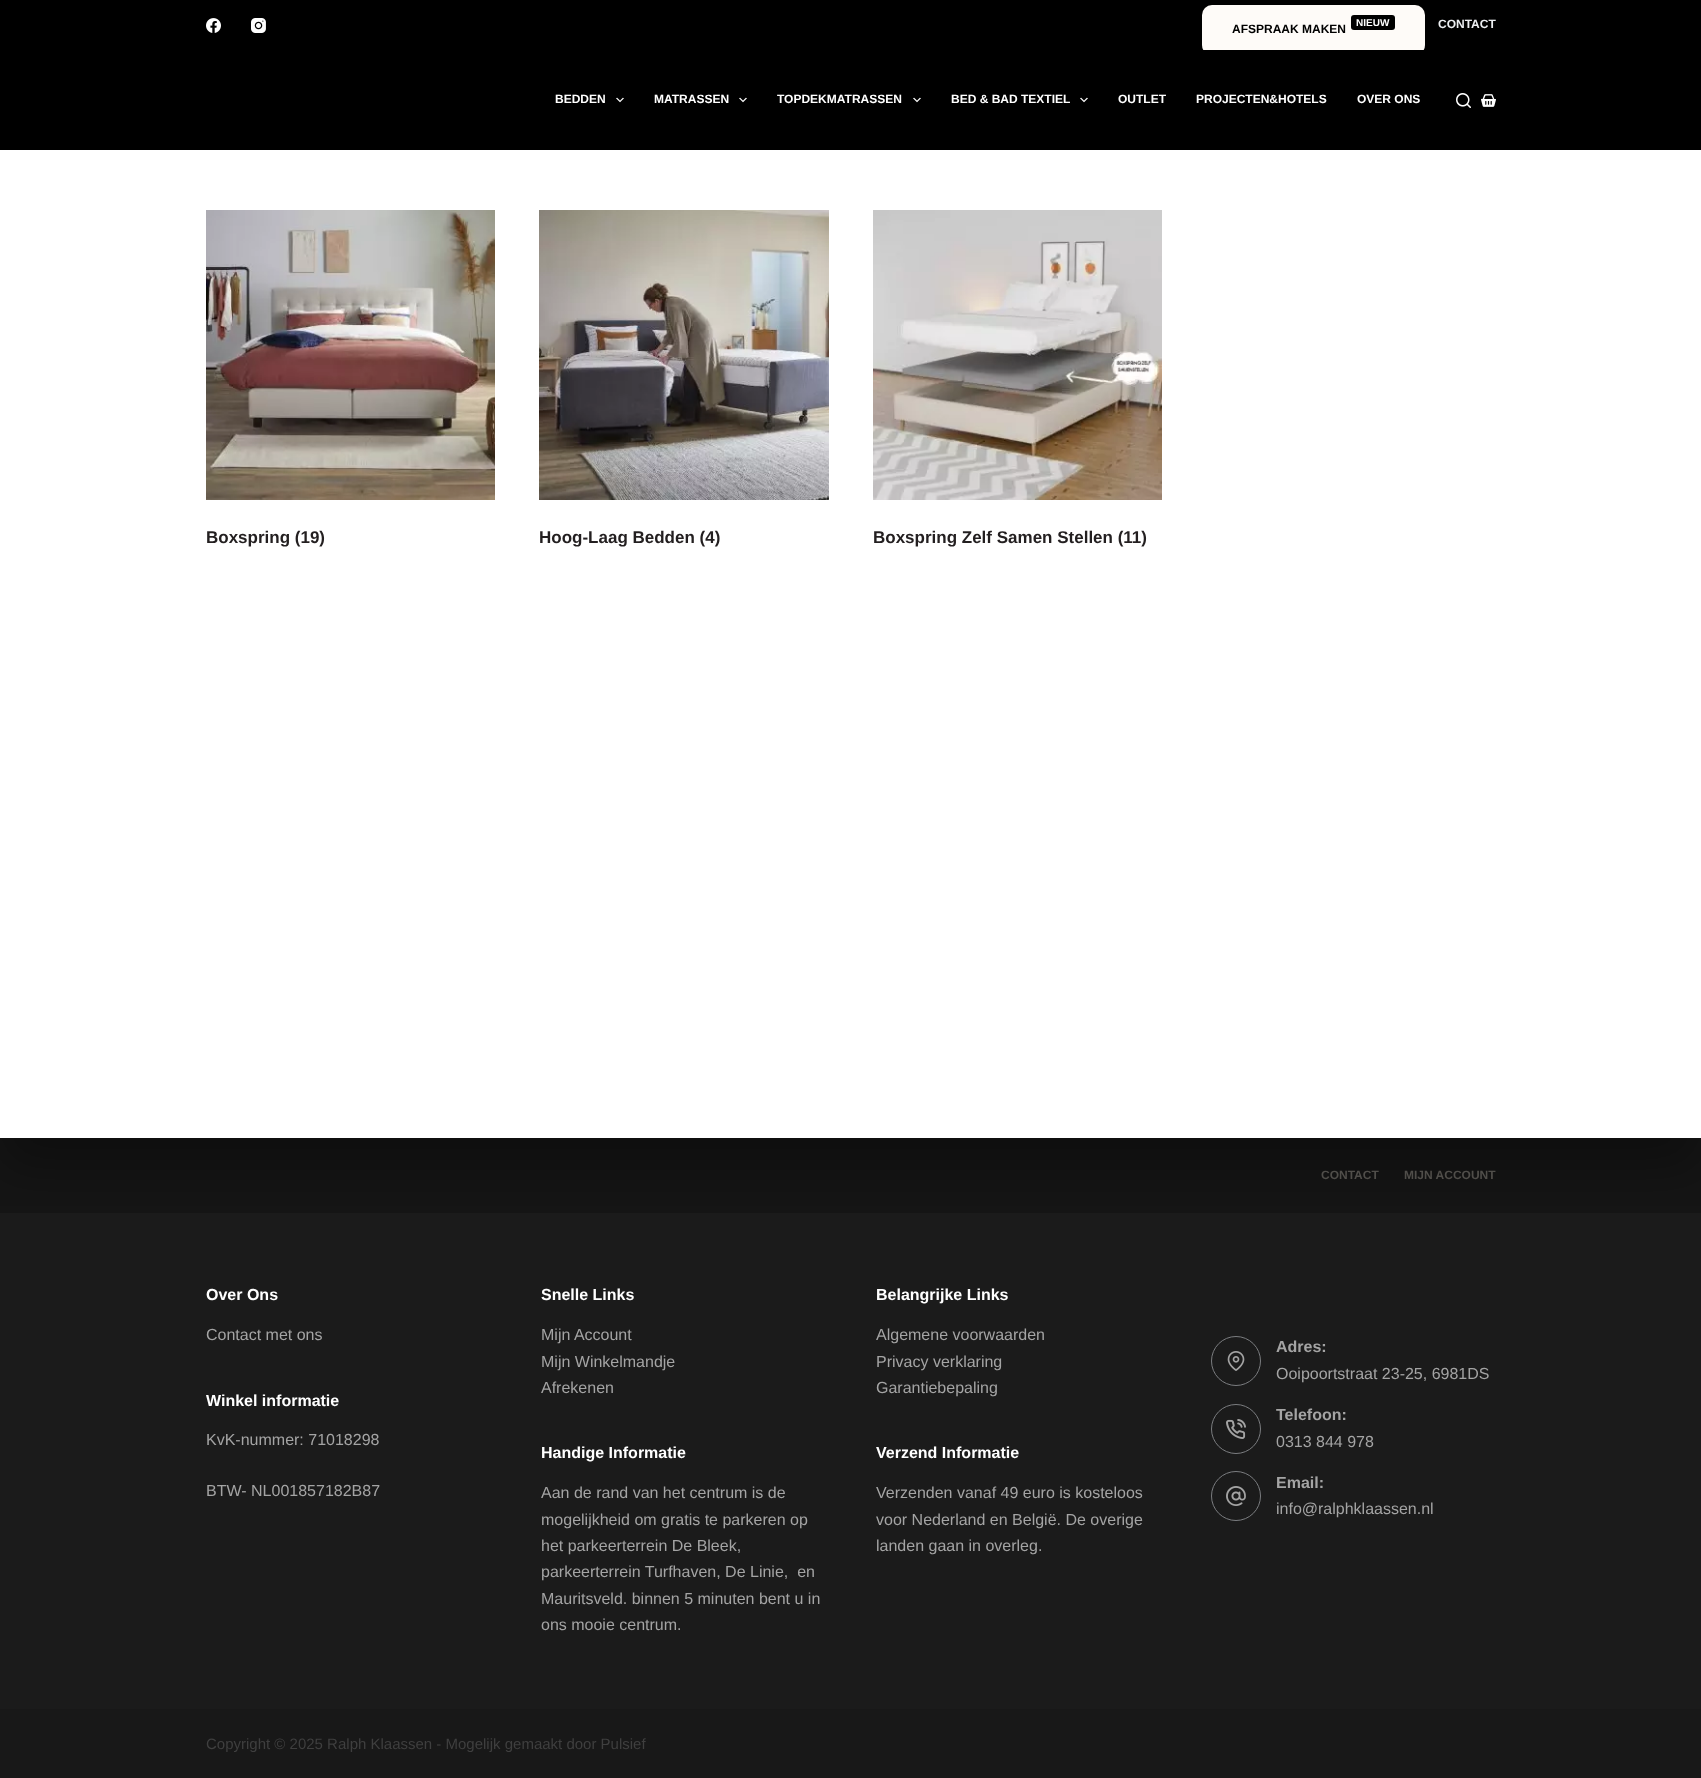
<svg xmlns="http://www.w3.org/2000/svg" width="1701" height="1778">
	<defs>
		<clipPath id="clip1"><rect x="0" y="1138" width="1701" height="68" /></clipPath>
		<clipPath id="clip2"><rect x="1202" y="0" width="294" height="50" /></clipPath>
	</defs>
	<rect width="100%" height="100%" fill="#FFFFFF" />
	<rect x="0" y="1213" width="1701" height="496" fill="#1B1B1B" />
	<rect x="0" y="1138" width="1701" height="75" fill="#151515" />
	<g clip-path="url(#clip1)">
		<rect x="0" y="180" width="1701" height="988" fill="#000000" fill-opacity="0.3" filter="blur(25px)" />
	</g>
	<rect x="0" y="0" width="1701" height="150" fill="#000000" />
	<image x="206" y="18" width="15" height="15" href="assets/img1.png" />
	<image x="251" y="18" width="15" height="15" href="assets/img2.png" />
	<g clip-path="url(#clip2)">
		<rect x="1202" y="5" width="223" height="50" rx="10" fill="#FEFBF8" />
	</g>
	<rect x="1351" y="15" width="44" height="15" rx="3" fill="#000000" />
	<text x="1356" y="26" font-family="Liberation Sans" font-size="10" font-weight="700" fill="#FFFFFF">NIEUW</text>
	<text x="1232" y="33" font-family="Liberation Sans" font-size="12" font-weight="700" fill="#000000">AFSPRAAK MAKEN</text>
	<text x="1438" y="28" font-family="Liberation Sans" font-size="12" font-weight="700" fill="#EDEFF2">CONTACT</text>
	<text x="555" y="103" font-family="Liberation Sans" font-size="12" font-weight="700" fill="#FFFFFF">BEDDEN</text>
	<image x="616" y="97" width="8" height="6" href="assets/img3.png" />
	<text x="654" y="103" font-family="Liberation Sans" font-size="12" font-weight="700" fill="#FFFFFF">MATRASSEN</text>
	<image x="739" y="97" width="8" height="6" href="assets/img3.png" />
	<text x="777" y="103" font-family="Liberation Sans" font-size="12" font-weight="700" fill="#FFFFFF">TOPDEKMATRASSEN</text>
	<image x="913" y="97" width="8" height="6" href="assets/img3.png" />
	<text x="951" y="103" font-family="Liberation Sans" font-size="12" font-weight="700" fill="#FFFFFF">BED &amp; BAD TEXTIEL</text>
	<image x="1080" y="97" width="8" height="6" href="assets/img3.png" />
	<g font-family="Liberation Sans" font-size="12" font-weight="700" fill="#FFFFFF">
		<text x="1118" y="103">OUTLET</text>
		<text x="1196" y="103">PROJECTEN&amp;HOTELS</text>
		<text x="1357" y="103">OVER ONS</text>
	</g>
	<image x="1456" y="93" width="15" height="15" href="assets/img4.png" />
	<image x="1481" y="94" width="15" height="13" href="assets/img5.png" />
	<image x="206" y="210" width="289" height="290" href="assets/img6.png" />
	<text x="206" y="543" font-family="Liberation Sans" font-size="17" font-weight="700" fill="#231F20">Boxspring (19)</text>
	<image x="539" y="210" width="290" height="290" href="assets/img7.png" />
	<text x="539" y="543" font-family="Liberation Sans" font-size="17" font-weight="700" fill="#231F20">Hoog-Laag Bedden (4)</text>
	<image x="873" y="210" width="289" height="290" href="assets/img8.png" />
	<text x="873" y="543" font-family="Liberation Sans" font-size="17" font-weight="700" fill="#231F20">Boxspring Zelf Samen Stellen (11)</text>
	<g font-family="Liberation Sans" font-size="12" font-weight="700" fill="#504E4A">
		<text x="1321" y="1179">CONTACT</text>
		<text x="1404" y="1179">MIJN ACCOUNT</text>
	</g>
	<text x="206" y="1300" font-family="Liberation Sans" font-size="16" font-weight="700" fill="#FFFFFF">Over Ons</text>
	<text x="206" y="1340" font-family="Liberation Sans" font-size="16" fill="#A4A4A4">Contact met ons</text>
	<text x="206" y="1406" font-family="Liberation Sans" font-size="16" font-weight="700" fill="#FFFFFF">Winkel informatie</text>
	<g font-family="Liberation Sans" font-size="16" fill="#A4A4A4">
		<text x="206" y="1445">KvK-nummer: 71018298</text>
		<text x="206" y="1496">BTW- NL001857182B87</text>
	</g>
	<text x="541" y="1300" font-family="Liberation Sans" font-size="16" font-weight="700" fill="#FFFFFF">Snelle Links</text>
	<g font-family="Liberation Sans" font-size="16" fill="#A4A4A4">
		<text x="541" y="1340">Mijn Account</text>
		<text x="541" y="1367">Mijn Winkelmandje</text>
		<text x="541" y="1393">Afrekenen</text>
	</g>
	<text x="541" y="1458" font-family="Liberation Sans" font-size="16" font-weight="700" fill="#FFFFFF">Handige Informatie</text>
	<g font-family="Liberation Sans" font-size="16" fill="#A4A4A4">
		<text x="541" y="1498">Aan de rand van het centrum is de</text>
		<text x="541" y="1525">mogelijkheid om gratis te parkeren op</text>
		<text x="541" y="1551">het parkeerterrein De Bleek,</text>
		<text x="541" y="1577" xml:space="preserve">parkeerterrein Turfhaven, De Linie,  en</text>
		<text x="541" y="1604">Mauritsveld. binnen 5 minuten bent u in</text>
		<text x="541" y="1630">ons mooie centrum.</text>
	</g>
	<text x="876" y="1300" font-family="Liberation Sans" font-size="16" font-weight="700" fill="#FFFFFF">Belangrijke Links</text>
	<g font-family="Liberation Sans" font-size="16" fill="#A4A4A4">
		<text x="876" y="1340">Algemene voorwaarden</text>
		<text x="876" y="1367">Privacy verklaring</text>
		<text x="876" y="1393">Garantiebepaling</text>
	</g>
	<text x="876" y="1458" font-family="Liberation Sans" font-size="16" font-weight="700" fill="#FFFFFF">Verzend Informatie</text>
	<g font-family="Liberation Sans" font-size="16" fill="#A4A4A4">
		<text x="876" y="1498">Verzenden vanaf 49 euro is kosteloos</text>
		<text x="876" y="1525">voor Nederland en België. De overige</text>
		<text x="876" y="1551">landen gaan in overleg.</text>
	</g>
	<circle cx="1236" cy="1361" r="24.5" fill="none" stroke="#7B7D80" />
	<image x="1227" y="1351" width="18" height="20" href="assets/img9.png" />
	<text x="1276" y="1352" font-family="Liberation Sans" font-size="16" font-weight="700" fill="#A4A4A4">Adres:</text>
	<text x="1276" y="1379" font-family="Liberation Sans" font-size="16" fill="#A4A4A4">Ooipoortstraat 23-25, 6981DS</text>
	<circle cx="1236" cy="1429" r="24.5" fill="none" stroke="#7B7D80" />
	<image x="1226" y="1419" width="20" height="20" href="assets/img10.png" />
	<text x="1276" y="1420" font-family="Liberation Sans" font-size="16" font-weight="700" fill="#A4A4A4">Telefoon:</text>
	<text x="1276" y="1447" font-family="Liberation Sans" font-size="16" fill="#A4A4A4">0313 844 978</text>
	<circle cx="1236" cy="1496" r="24.5" fill="none" stroke="#7B7D80" />
	<image x="1226" y="1486" width="20" height="20" href="assets/img11.png" />
	<text x="1276" y="1488" font-family="Liberation Sans" font-size="16" font-weight="700" fill="#A4A4A4">Email:</text>
	<text x="1276" y="1514" font-family="Liberation Sans" font-size="16" fill="#A4A4A4">info@ralphklaassen.nl</text>
	<rect x="0" y="1709" width="1701" height="69" fill="#181818" />
	<text x="206" y="1749" font-family="Liberation Sans" font-size="15" fill="#3F3F3F">Copyright © 2025 Ralph Klaassen - Mogelijk gemaakt door Pulsief</text>
</svg>
